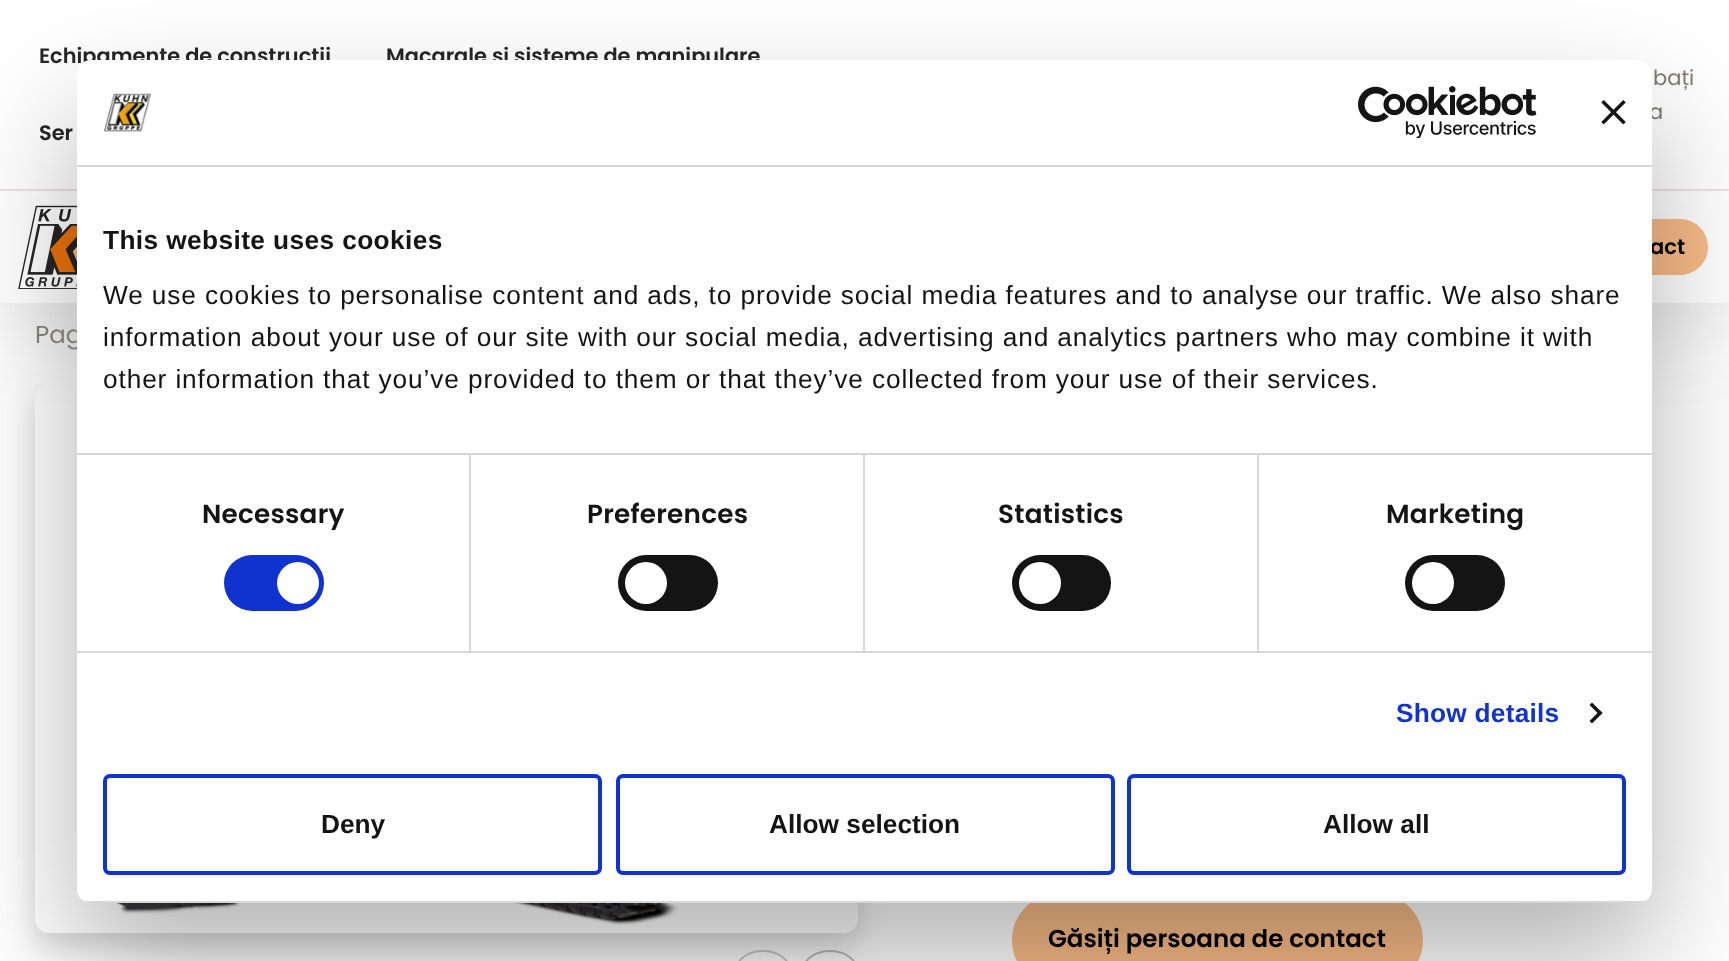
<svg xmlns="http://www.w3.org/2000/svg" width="1729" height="961">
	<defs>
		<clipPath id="clip1"><path d="M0 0H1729V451H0ZM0 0H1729V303H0Z" clip-rule="evenodd" /></clipPath>
		<clipPath id="clip2"><rect x="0" y="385" width="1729" height="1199" /></clipPath>
		<clipPath id="clip3"><path d="M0 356H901V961H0ZM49 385H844C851.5 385 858 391.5 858 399V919C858 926.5 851.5 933 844 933H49C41.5 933 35 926.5 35 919V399C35 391.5 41.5 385 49 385Z" clip-rule="evenodd" /></clipPath>
		<clipPath id="clip4"><rect x="77" y="60" width="1575" height="843" rx="14" /></clipPath>
	</defs>
	<rect width="100%" height="100%" fill="#FFFFFF" />
	<rect x="0" y="189" width="1729" height="2" fill="#E9E4DF" />
	<image x="18" y="205" width="59" height="84" href="assets/img1.png" />
	<g clip-path="url(#clip1)">
		<rect x="0" y="21" width="1729" height="303" fill="#262626" fill-opacity="0.12" filter="blur(42px)" />
	</g>
	<g font-family="Poppins" font-size="20.9" font-weight="600" fill="#262626">
		<text x="39" y="63">Echipamente de construcții</text>
		<text x="386" y="63">Macarale și sisteme de manipulare</text>
		<text x="39" y="140">Ser</text>
	</g>
	<g font-family="Poppins" font-size="21" fill="#7D7B78">
		<text x="1653" y="85">bați</text>
		<text x="1649" y="119">a</text>
	</g>
	<rect x="1578" y="220" width="129" height="54" rx="27" fill="#F9BC88" stroke="#F9BC88" stroke-width="2" />
	<text x="1650" y="254" font-family="Poppins" font-size="21" font-weight="600" fill="#000000">act</text>
	<g clip-path="url(#clip2)">
		<g clip-path="url(#clip3)">
			<rect x="35" y="399" width="823" height="548" rx="14" fill="#000000" fill-opacity="0.15" filter="blur(14px)" />
		</g>
	</g>
	<image x="116" y="903" width="561" height="22" href="assets/img5.png" />
	<rect x="736" y="951" width="54" height="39" rx="27" fill="none" stroke="#928F8C" stroke-opacity="0.5" stroke-width="2" />
	<rect x="803" y="951" width="54" height="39" rx="27" fill="none" stroke="#262626" stroke-opacity="0.3" stroke-width="2" />
	<rect x="1013" y="894" width="409" height="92" rx="46" fill="#F9BC88" stroke="#F9BC88" stroke-width="2" />
	<rect x="77" y="116" width="1575" height="843" rx="14" fill="#000000" fill-opacity="0.3" filter="blur(59.5px)" />
	<text x="35" y="343" font-family="Poppins" font-size="24.5" fill="#7D7B78">Pag</text>
	<rect x="77" y="60" width="1575" height="843" rx="14" fill="#FFFFFF" />
	<rect x="77" y="165" width="1575" height="2" fill="#D6D6D6" />
	<image x="104" y="93" width="47" height="39" href="assets/img2.png" />
	<image x="1358" y="86" width="179" height="52" href="assets/img3.png" />
	<image x="1601" y="100" width="25" height="24" href="assets/img4.png" />
	<rect x="77" y="453" width="1575" height="2" fill="#D6D6D6" />
	<text x="103" y="249" font-family="Liberation Sans" font-size="26.25" font-weight="700" letter-spacing="0.4" fill="#141414">This website uses cookies</text>
	<g font-family="Liberation Sans" font-size="26.25" letter-spacing="0.88" fill="#141414">
		<text x="103" y="304">We use cookies to personalise content and ads, to provide social media features and to analyse our traffic. We also share</text>
		<text x="103" y="346">information about your use of our site with our social media, advertising and analytics partners who may combine it with</text>
		<text x="103" y="388">other information that you’ve provided to them or that they’ve collected from your use of their services.</text>
	</g>
	<rect x="77" y="651" width="1575" height="2" fill="#D6D6D6" />
	<rect x="469" y="455" width="2" height="196" fill="#D6D6D6" />
	<text x="202" y="523" font-family="Poppins" font-size="26.25" font-weight="600" letter-spacing="0.25" fill="#141414">Necessary</text>
	<rect x="224" y="555" width="100" height="56" rx="28" fill="#1032CF" />
	<circle cx="298" cy="583" r="21" fill="#FFFFFF" />
	<rect x="863" y="455" width="2" height="196" fill="#D6D6D6" />
	<text x="587" y="523" font-family="Poppins" font-size="26.25" font-weight="600" letter-spacing="0.25" fill="#141414">Preferences</text>
	<rect x="618" y="555" width="100" height="56" rx="28" fill="#141414" />
	<circle cx="646" cy="583" r="21" fill="#FFFFFF" />
	<rect x="1257" y="455" width="2" height="196" fill="#D6D6D6" />
	<text x="998" y="523" font-family="Poppins" font-size="26.25" font-weight="600" letter-spacing="0.25" fill="#141414">Statistics</text>
	<rect x="1012" y="555" width="99" height="56" rx="28" fill="#141414" />
	<circle cx="1040" cy="583" r="21" fill="#FFFFFF" />
	<text x="1386" y="523" font-family="Poppins" font-size="26.25" font-weight="600" letter-spacing="0.25" fill="#141414">Marketing</text>
	<rect x="1405" y="555" width="100" height="56" rx="28" fill="#141414" />
	<circle cx="1433" cy="583" r="21" fill="#FFFFFF" />
	<text x="1396" y="722" font-family="Liberation Sans" font-size="26.25" font-weight="700" letter-spacing="0.25" fill="#1032CF">Show details</text>
	<path d="M1592 702.5L1602.5 713L1600 715.5L1589.5 705Z" fill="#141414" />
	<path d="M1600 710.5L1602.5 713L1592 723.5L1589.5 721Z" fill="#141414" />
	<g clip-path="url(#clip4)">
		<rect x="77" y="901" width="1575" height="2" fill="#D6D6D6" />
	</g>
	<rect x="105" y="776" width="495" height="97" rx="5" fill="none" stroke="#1032CF" stroke-width="4" />
	<text x="321" y="833" font-family="Liberation Sans" font-size="26.25" font-weight="700" fill="#141414">Deny</text>
	<rect x="618" y="776" width="495" height="97" rx="5" fill="none" stroke="#1032CF" stroke-width="4" />
	<text x="769" y="833" font-family="Liberation Sans" font-size="26.25" font-weight="700" fill="#141414">Allow selection</text>
	<rect x="1129" y="776" width="495" height="97" rx="5" fill="none" stroke="#1032CF" stroke-width="4" />
	<text x="1323" y="833" font-family="Liberation Sans" font-size="26.25" font-weight="700" fill="#141414">Allow all</text>
	<text x="1048" y="947" font-family="Poppins" font-size="24.5" font-weight="600" fill="#000000">Găsiți persoana de contact</text>
</svg>
